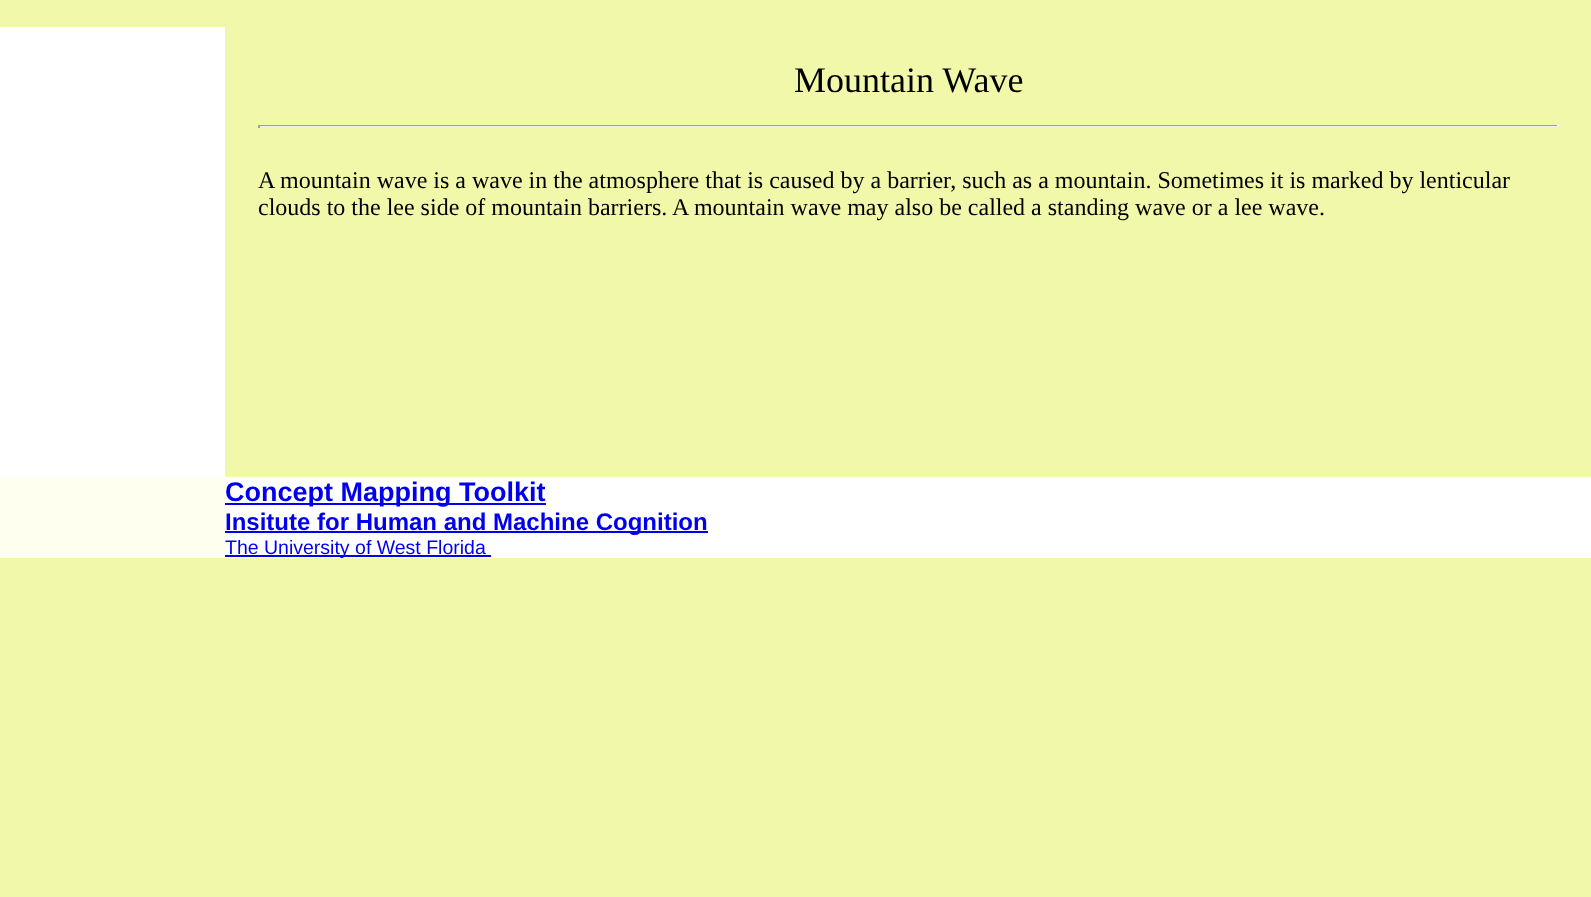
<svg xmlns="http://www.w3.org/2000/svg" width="1591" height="897">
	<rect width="100%" height="100%" fill="#F2F8AA" />
	<rect x="0" y="27" width="1591" height="531" fill="#FFFFFF" />
	<rect x="225" y="27" width="1366" height="450" fill="#F2F8AA" />
	<text x="794" y="92" font-family="Liberation Serif" font-size="36" fill="#000000">Mountain Wave</text>
	<rect x="258" y="125" width="1301" height="1" fill="#9F9F9F" />
	<rect x="1557" y="125" width="2" height="3" fill="#EEEEEE" />
	<rect x="258" y="126" width="1301" height="2" fill="#EEEEEE" />
	<rect x="258" y="125" width="2" height="3" fill="#9F9F9F" />
	<g font-family="Liberation Serif" font-size="24" fill="#000000">
		<text x="258" y="188">A mountain wave is a wave in the atmosphere that is caused by a barrier, such as a mountain. Sometimes it is marked by lenticular</text>
		<text x="258" y="215">clouds to the lee side of mountain barriers. A mountain wave may also be called a standing wave or a lee wave.</text>
	</g>
	<rect x="0" y="477" width="225" height="81" fill="#FFFFF0" />
	<rect x="225" y="503" width="321" height="2" fill="#0000EE" />
	<text x="225" y="501" font-family="Liberation Sans" font-size="27" font-weight="700" fill="#0000EE">Concept Mapping Toolkit</text>
	<rect x="225" y="531" width="483" height="2" fill="#0000EE" />
	<text x="225" y="530" font-family="Liberation Sans" font-size="24" font-weight="700" fill="#0000EE">Insitute for Human and Machine Cognition</text>
	<rect x="225" y="555" width="266" height="2" fill="#0000EE" />
	<text x="225" y="554" font-family="Liberation Sans" font-size="19.5" fill="#0000EE">The University of West Florida</text>
</svg>
